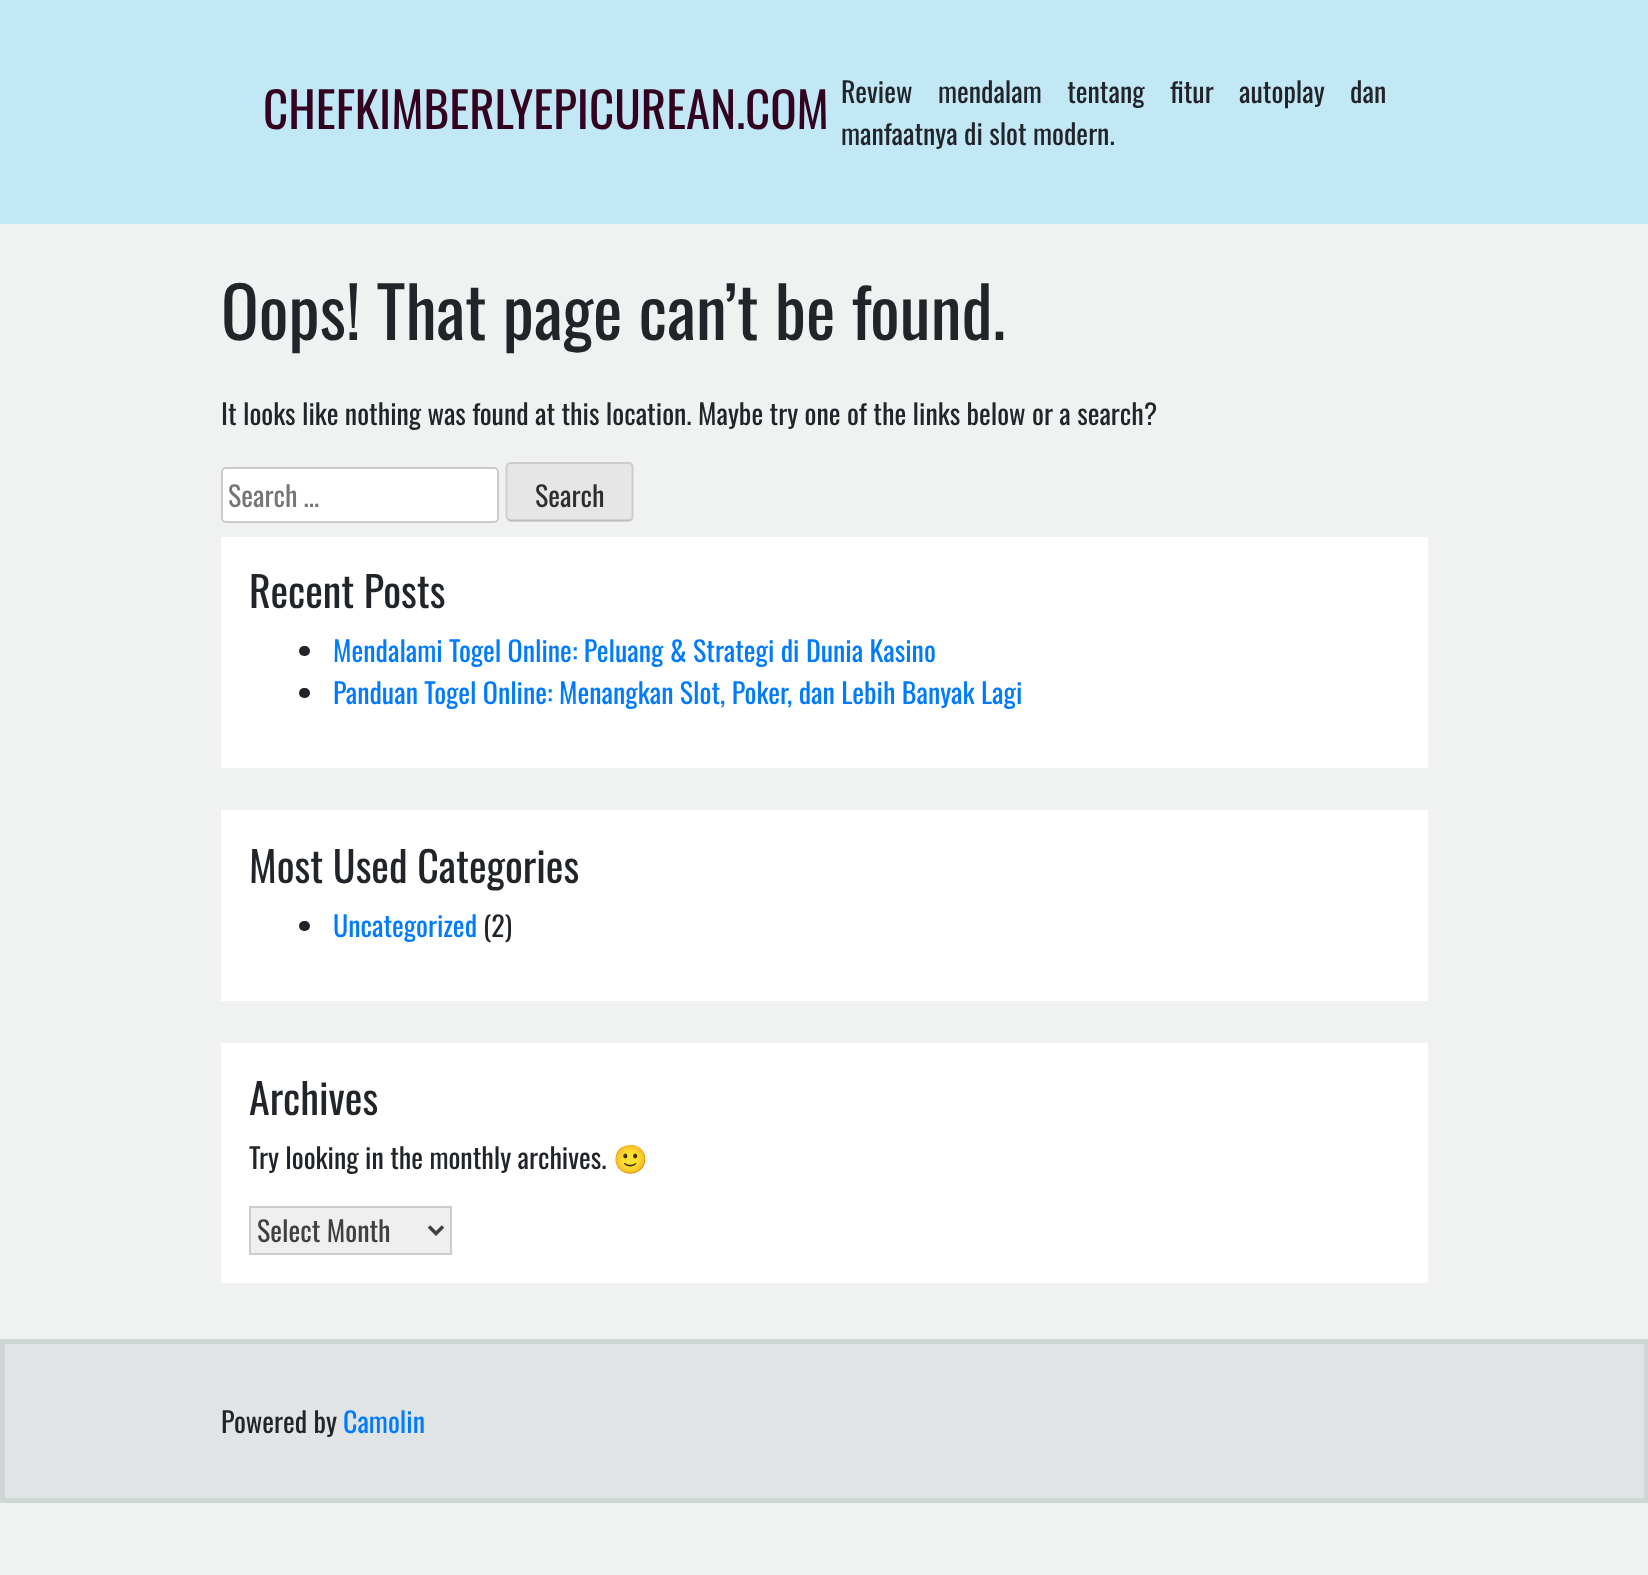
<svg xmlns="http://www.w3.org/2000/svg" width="1648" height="1575">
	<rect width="100%" height="100%" fill="#F0F2F2" />
	<rect x="0" y="0" width="1648" height="224" fill="#C2E8F6" />
	<text x="263" y="129" font-family="Oswald" font-size="49" fill="#32021F">CHEFKIMBERLYEPICUREAN.COM</text>
	<g font-family="Oswald" font-size="28" fill="#212529">
		<text x="841" y="103" word-spacing="19">Review mendalam tentang fitur autoplay dan</text>
		<text x="841" y="145">manfaatnya di slot modern.</text>
	</g>
	<text x="221" y="340" font-family="Oswald" font-size="70" fill="#212529">Oops! That page can’t be found.</text>
	<text x="221" y="425" font-family="Oswald" font-size="28" fill="#212529">It looks like nothing was found at this location. Maybe try one of the links below or a search?</text>
	<rect x="222" y="468" width="276" height="54" rx="4" fill="#FFFFFF" stroke="#CCCCCC" stroke-width="2" />
	<text x="228" y="507" font-family="Oswald" font-size="28" fill="#757575">Search …</text>
	<rect x="506" y="462" width="128" height="60" rx="5" fill="#E6E6E6" />
	<path d="M631.5 519.5L628 520.5H510.5L508 519.5" fill="none" stroke="#BBBBBB" stroke-width="1.8" />
	<path d="M508 519.5C507 518.5 506.5 517.5 506.5 516V467C506.5 466 507 465 508 464C508.5 463.5 510 463 511 463H628C629.5 463 630.5 463.5 631.5 464C632 465 632.5 466 632.5 467V516C632.5 517.5 632 518.5 631.5 519.5" fill="none" stroke="#CCCCCC" stroke-width="1.8" />
	<text x="535" y="507" font-family="Oswald" font-size="28" fill="#2E2E2E">Search</text>
	<rect x="221" y="537" width="1207" height="231" fill="#FFFFFF" />
	<text x="249" y="608" font-family="Oswald" font-size="42" fill="#212529">Recent Posts</text>
	<rect x="299" y="646" width="11" height="10" rx="5" fill="#212529" />
	<text x="333" y="662" font-family="Oswald" font-size="28" fill="#007BFF">Mendalami Togel Online: Peluang &amp; Strategi di Dunia Kasino</text>
	<rect x="299" y="688" width="11" height="10" rx="5" fill="#212529" />
	<text x="333" y="704" font-family="Oswald" font-size="28" fill="#007BFF">Panduan Togel Online: Menangkan Slot, Poker, dan Lebih Banyak Lagi</text>
	<rect x="221" y="810" width="1207" height="191" fill="#FFFFFF" />
	<text x="249" y="883" font-family="Oswald" font-size="42" fill="#212529">Most Used Categories</text>
	<rect x="299" y="921" width="11" height="10" rx="5" fill="#212529" />
	<text x="333" y="937" font-family="Oswald" font-size="28" fill="#007BFF">Uncategorized</text>
	<text x="483" y="937" font-family="Oswald" font-size="28" fill="#212529">(2)</text>
	<rect x="221" y="1043" width="1207" height="240" fill="#FFFFFF" />
	<text x="249" y="1115" font-family="Oswald" font-size="42" fill="#212529">Archives</text>
	<text x="249" y="1169" font-family="Oswald" font-size="28" fill="#212529">Try looking in the monthly archives.</text>
	<text x="613" y="1169" font-family="Noto Color Emoji" font-size="28" fill="#212529">🙂</text>
	<rect x="250" y="1207" width="201" height="47" fill="#EFEFEF" stroke="#CCCCCC" stroke-width="2" />
	<path d="M429 1226.5L436 1233.5L443 1226.5" fill="none" stroke="#404040" stroke-width="3.5" />
	<text x="257" y="1242" font-family="Oswald" font-size="28" fill="#404040">Select Month</text>
	<rect x="2.5" y="1341.5" width="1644" height="159" fill="#E0E4E4" stroke="#CFD6D6" stroke-width="5" />
	<text x="221" y="1433" font-family="Oswald" font-size="28" fill="#212529">Powered by</text>
	<text x="343" y="1433" font-family="Oswald" font-size="28" fill="#007BFF">Camolin</text>
</svg>
